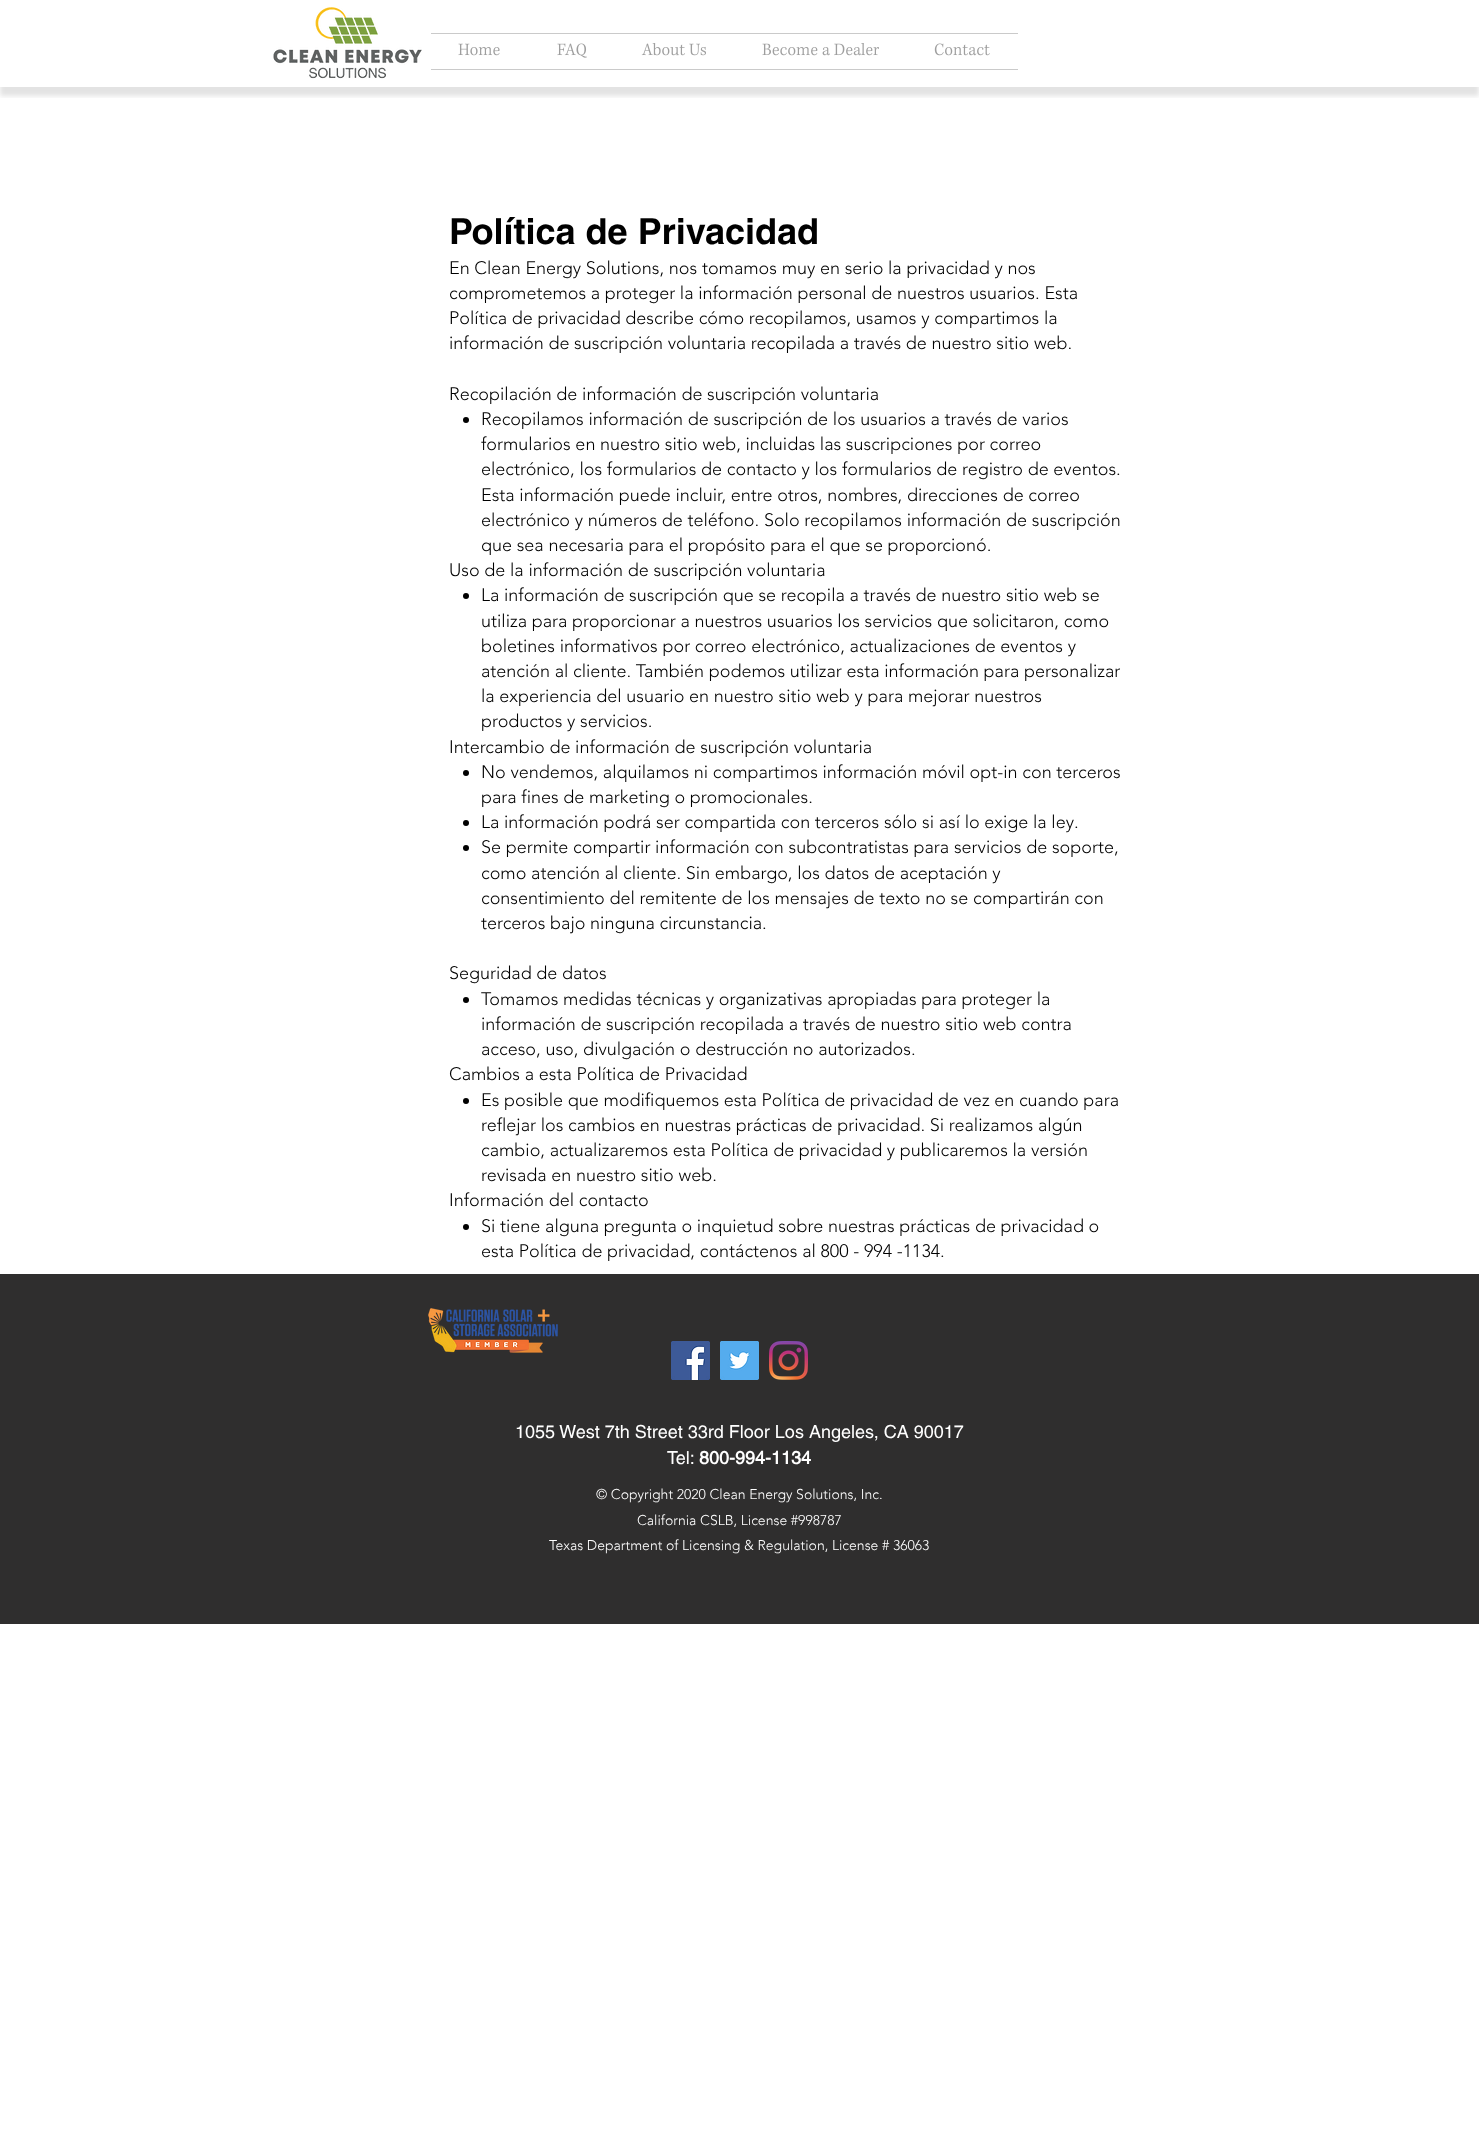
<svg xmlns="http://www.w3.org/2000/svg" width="1479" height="2150">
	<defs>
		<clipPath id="clip1"><rect x="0" y="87" width="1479" height="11" /></clipPath>
	</defs>
	<rect width="100%" height="100%" fill="#FFFFFF" />
	<g clip-path="url(#clip1)">
		<rect x="0" y="9" width="1479" height="87" fill="#000000" fill-opacity="0.11" filter="blur(2.5px)" />
	</g>
	<image x="273" y="7" width="149" height="72" href="assets/img1.png" />
	<rect x="431" y="33" width="587" height="1" fill="#CACACA" />
	<rect x="431" y="69" width="587" height="1" fill="#CACACA" />
	<image x="458" y="43" width="42" height="13" href="assets/img2.png" />
	<image x="557" y="43" width="30" height="15" href="assets/img3.png" />
	<image x="641" y="43" width="65" height="13" href="assets/img4.png" />
	<image x="762" y="43" width="117" height="13" href="assets/img5.png" />
	<image x="934" y="43" width="56" height="13" href="assets/img6.png" />
	<text x="449" y="244" font-family="helvetica" font-size="36" font-weight="700" fill="#000000">Política de Privacidad</text>
	<g font-family="'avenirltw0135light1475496'" font-size="18" font-weight="300" fill="#000000">
		<text x="449" y="274">En Clean Energy Solutions, nos tomamos muy en serio la privacidad y nos</text>
		<text x="449" y="299">comprometemos a proteger la información personal de nuestros usuarios. Esta</text>
		<text x="449" y="324">Política de privacidad describe cómo recopilamos, usamos y compartimos la</text>
		<text x="449" y="349">información de suscripción voluntaria recopilada a través de nuestro sitio web.</text>
		<text x="449" y="400">Recopilación de información de suscripción voluntaria</text>
	</g>
	<circle cx="466" cy="420" r="3" fill="#000000" />
	<g font-family="'avenirltw0135light1475496'" font-size="18" font-weight="300" fill="#000000">
		<text x="481" y="425">Recopilamos información de suscripción de los usuarios a través de varios</text>
		<text x="481" y="450">formularios en nuestro sitio web, incluidas las suscripciones por correo</text>
		<text x="481" y="475">electrónico, los formularios de contacto y los formularios de registro de eventos.</text>
		<text x="481" y="501">Esta información puede incluir, entre otros, nombres, direcciones de correo</text>
		<text x="481" y="526">electrónico y números de teléfono. Solo recopilamos información de suscripción</text>
		<text x="481" y="551">que sea necesaria para el propósito para el que se proporcionó.</text>
		<text x="449" y="576">Uso de la información de suscripción voluntaria</text>
	</g>
	<circle cx="466" cy="596" r="3" fill="#000000" />
	<g font-family="'avenirltw0135light1475496'" font-size="18" font-weight="300" fill="#000000">
		<text x="481" y="601">La información de suscripción que se recopila a través de nuestro sitio web se</text>
		<text x="481" y="627">utiliza para proporcionar a nuestros usuarios los servicios que solicitaron, como</text>
		<text x="481" y="652">boletines informativos por correo electrónico, actualizaciones de eventos y</text>
		<text x="481" y="677">atención al cliente. También podemos utilizar esta información para personalizar</text>
		<text x="481" y="702">la experiencia del usuario en nuestro sitio web y para mejorar nuestros</text>
		<text x="481" y="727">productos y servicios.</text>
		<text x="449" y="753">Intercambio de información de suscripción voluntaria</text>
	</g>
	<circle cx="466" cy="773" r="3" fill="#000000" />
	<g font-family="'avenirltw0135light1475496'" font-size="18" font-weight="300" fill="#000000">
		<text x="481" y="778">No vendemos, alquilamos ni compartimos información móvil opt-in con terceros</text>
		<text x="481" y="803">para fines de marketing o promocionales.</text>
	</g>
	<circle cx="466" cy="823" r="3" fill="#000000" />
	<text x="481" y="828" font-family="'avenirltw0135light1475496'" font-size="18" font-weight="300" fill="#000000">La información podrá ser compartida con terceros sólo si así lo exige la ley.</text>
	<circle cx="466" cy="848" r="3" fill="#000000" />
	<g font-family="'avenirltw0135light1475496'" font-size="18" font-weight="300" fill="#000000">
		<text x="481" y="853">Se permite compartir información con subcontratistas para servicios de soporte,</text>
		<text x="481" y="879">como atención al cliente. Sin embargo, los datos de aceptación y</text>
		<text x="481" y="904">consentimiento del remitente de los mensajes de texto no se compartirán con</text>
		<text x="481" y="929">terceros bajo ninguna circunstancia.</text>
		<text x="449" y="979">Seguridad de datos</text>
	</g>
	<circle cx="466" cy="1000" r="3" fill="#000000" />
	<g font-family="'avenirltw0135light1475496'" font-size="18" font-weight="300" fill="#000000">
		<text x="481" y="1005">Tomamos medidas técnicas y organizativas apropiadas para proteger la</text>
		<text x="481" y="1030">información de suscripción recopilada a través de nuestro sitio web contra</text>
		<text x="481" y="1055">acceso, uso, divulgación o destrucción no autorizados.</text>
		<text x="449" y="1080">Cambios a esta Política de Privacidad</text>
	</g>
	<circle cx="466" cy="1101" r="3" fill="#000000" />
	<g font-family="'avenirltw0135light1475496'" font-size="18" font-weight="300" fill="#000000">
		<text x="481" y="1106">Es posible que modifiquemos esta Política de privacidad de vez en cuando para</text>
		<text x="481" y="1131">reflejar los cambios en nuestras prácticas de privacidad. Si realizamos algún</text>
		<text x="481" y="1156">cambio, actualizaremos esta Política de privacidad y publicaremos la versión</text>
		<text x="481" y="1181">revisada en nuestro sitio web.</text>
		<text x="449" y="1206">Información del contacto</text>
	</g>
	<circle cx="466" cy="1227" r="3" fill="#000000" />
	<g font-family="'avenirltw0135light1475496'" font-size="18" font-weight="300" fill="#000000">
		<text x="481" y="1232">Si tiene alguna pregunta o inquietud sobre nuestras prácticas de privacidad o</text>
		<text x="481" y="1257">esta Política de privacidad, contáctenos al 800 - 994 -1134.</text>
	</g>
	<rect x="0" y="1274" width="1479" height="350" fill="#2F2E2E" />
	<image x="428" y="1308" width="130" height="45" href="assets/img7.png" />
	<image x="671" y="1341" width="39" height="39" href="assets/img8.png" />
	<image x="720" y="1341" width="39" height="39" href="assets/img9.png" />
	<image x="769" y="1341" width="39" height="39" href="assets/img10.png" />
	<g font-family="helvetica" font-size="18" fill="#FFFFFF">
		<text x="515" y="1438">1055 West 7th Street 33rd Floor Los Angeles, CA 90017</text>
		<text x="667" y="1464">Tel:</text>
	</g>
	<text x="699" y="1464" font-family="'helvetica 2'" font-size="18" font-weight="700" fill="#FFFFFF">800-994-1134</text>
	<g font-family="'avenirltw0135light1475496'" font-size="14" font-weight="300" fill="#FFFFFF">
		<text x="596" y="1499">© Copyright 2020 Clean Energy Solutions, Inc.</text>
		<text x="637" y="1525">California CSLB, License #998787</text>
		<text x="549" y="1550">Texas Department of Licensing &amp; Regulation, License # 36063</text>
	</g>
</svg>
